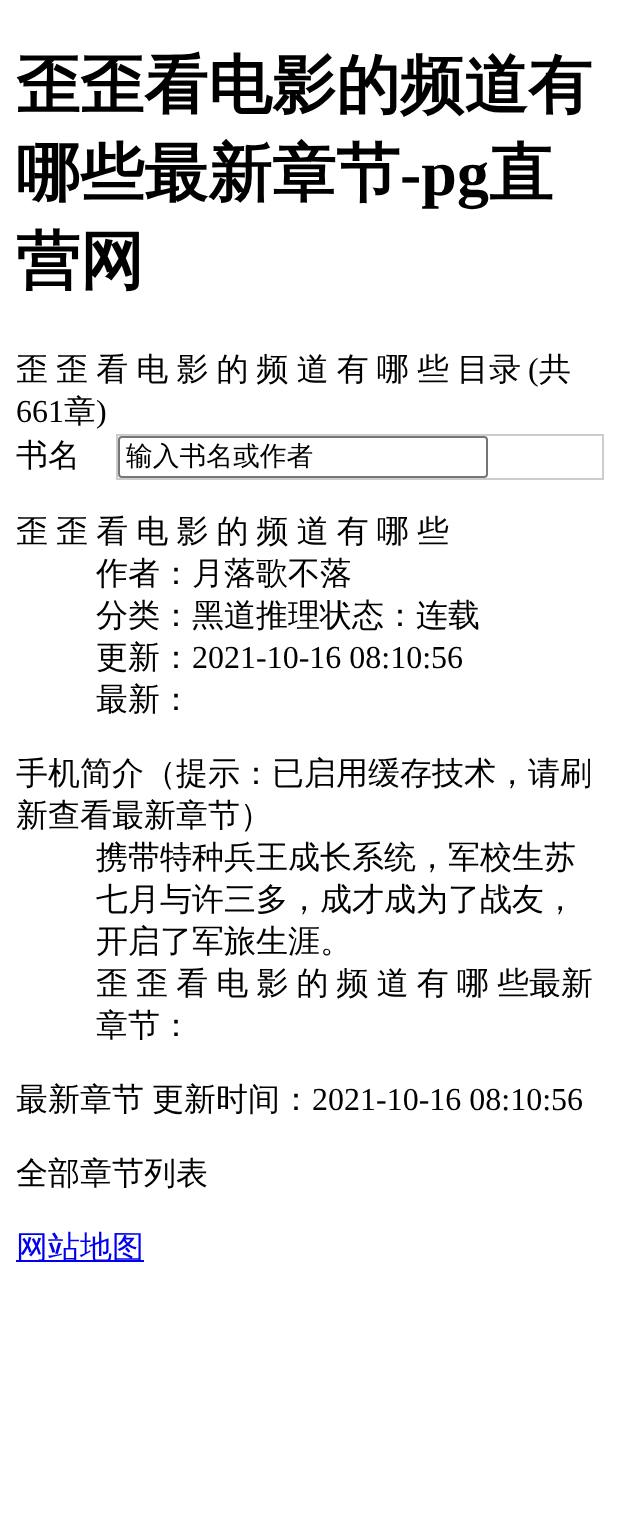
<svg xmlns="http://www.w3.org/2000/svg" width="620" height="1531">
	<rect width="100%" height="100%" fill="#FFFFFF" />
	<g font-family="WenQuanYi Zen Hei" font-size="64" font-weight="700" fill="#000000">
		<text x="16" y="107">歪歪看电影的频道有</text>
		<text x="16" y="195">哪些最新章节</text>
	</g>
	<text x="400" y="195" font-family="Liberation Serif" font-size="64" font-weight="700" fill="#000000">-pg</text>
	<g font-family="WenQuanYi Zen Hei" font-size="64" font-weight="700" fill="#000000">
		<text x="489" y="195">直</text>
		<text x="16" y="283">营网</text>
	</g>
	<text x="16" y="380" word-spacing="-1.5" font-family="WenQuanYi Zen Hei" font-size="32" font-weight="500" fill="#000000">歪 歪 看 电 影 的 频 道 有 哪 些 目录</text>
	<text x="528" y="380" font-family="Liberation Serif" font-size="32" fill="#000000">(</text>
	<text x="539" y="380" font-family="WenQuanYi Zen Hei" font-size="32" font-weight="500" fill="#000000">共</text>
	<text x="16" y="422" font-family="Liberation Serif" font-size="32" fill="#000000">661</text>
	<text x="64" y="422" font-family="WenQuanYi Zen Hei" font-size="32" font-weight="500" fill="#000000">章</text>
	<text x="96" y="422" font-family="Liberation Serif" font-size="32" fill="#000000">)</text>
	<text x="16" y="466" font-family="WenQuanYi Zen Hei" font-size="32" font-weight="500" fill="#000000">书名</text>
	<rect x="117" y="435" width="486" height="44" fill="none" stroke="#CCCCCC" stroke-width="2" />
	<rect x="119" y="437" width="368" height="40" rx="3" fill="none" stroke="#767676" stroke-width="2" />
	<text x="126" y="465" font-family="WenQuanYi Zen Hei" font-size="26.75" font-weight="500" fill="#000000">输入书名或作者</text>
	<g font-family="WenQuanYi Zen Hei" font-size="32" font-weight="500" fill="#000000">
		<text x="16" y="542" word-spacing="-1.5">歪 歪 看 电 影 的 频 道 有 哪 些</text>
		<text x="96" y="584">作者：月落歌不落</text>
		<text x="96" y="626">分类：黑道推理状态：连载</text>
		<text x="96" y="668">更新：</text>
	</g>
	<text x="192" y="668" font-family="Liberation Serif" font-size="32" fill="#000000">2021-10-16 08:10:56</text>
	<g font-family="WenQuanYi Zen Hei" font-size="32" font-weight="500" fill="#000000">
		<text x="96" y="710">最新：</text>
		<text x="16" y="784">手机简介（提示：已启用缓存技术，请刷</text>
		<text x="16" y="826">新查看最新章节）</text>
		<text x="96" y="868">携带特种兵王成长系统，军校生苏</text>
		<text x="96" y="910">七月与许三多，成才成为了战友，</text>
		<text x="96" y="952">开启了军旅生涯。</text>
		<text x="96" y="994" word-spacing="-1.5">歪 歪 看 电 影 的 频 道 有 哪 些最新</text>
		<text x="96" y="1036">章节：</text>
		<text x="16" y="1110">最新章节</text>
		<text x="152" y="1110">更新时间：</text>
	</g>
	<text x="312" y="1110" font-family="Liberation Serif" font-size="32" fill="#000000">2021-10-16 08:10:56</text>
	<text x="16" y="1184" font-family="WenQuanYi Zen Hei" font-size="32" font-weight="500" fill="#000000">全部章节列表</text>
	<rect x="16" y="1260" width="128" height="2" fill="#0000EE" />
	<text x="16" y="1258" font-family="WenQuanYi Zen Hei" font-size="32" font-weight="500" fill="#0000EE">网站地图</text>
</svg>
